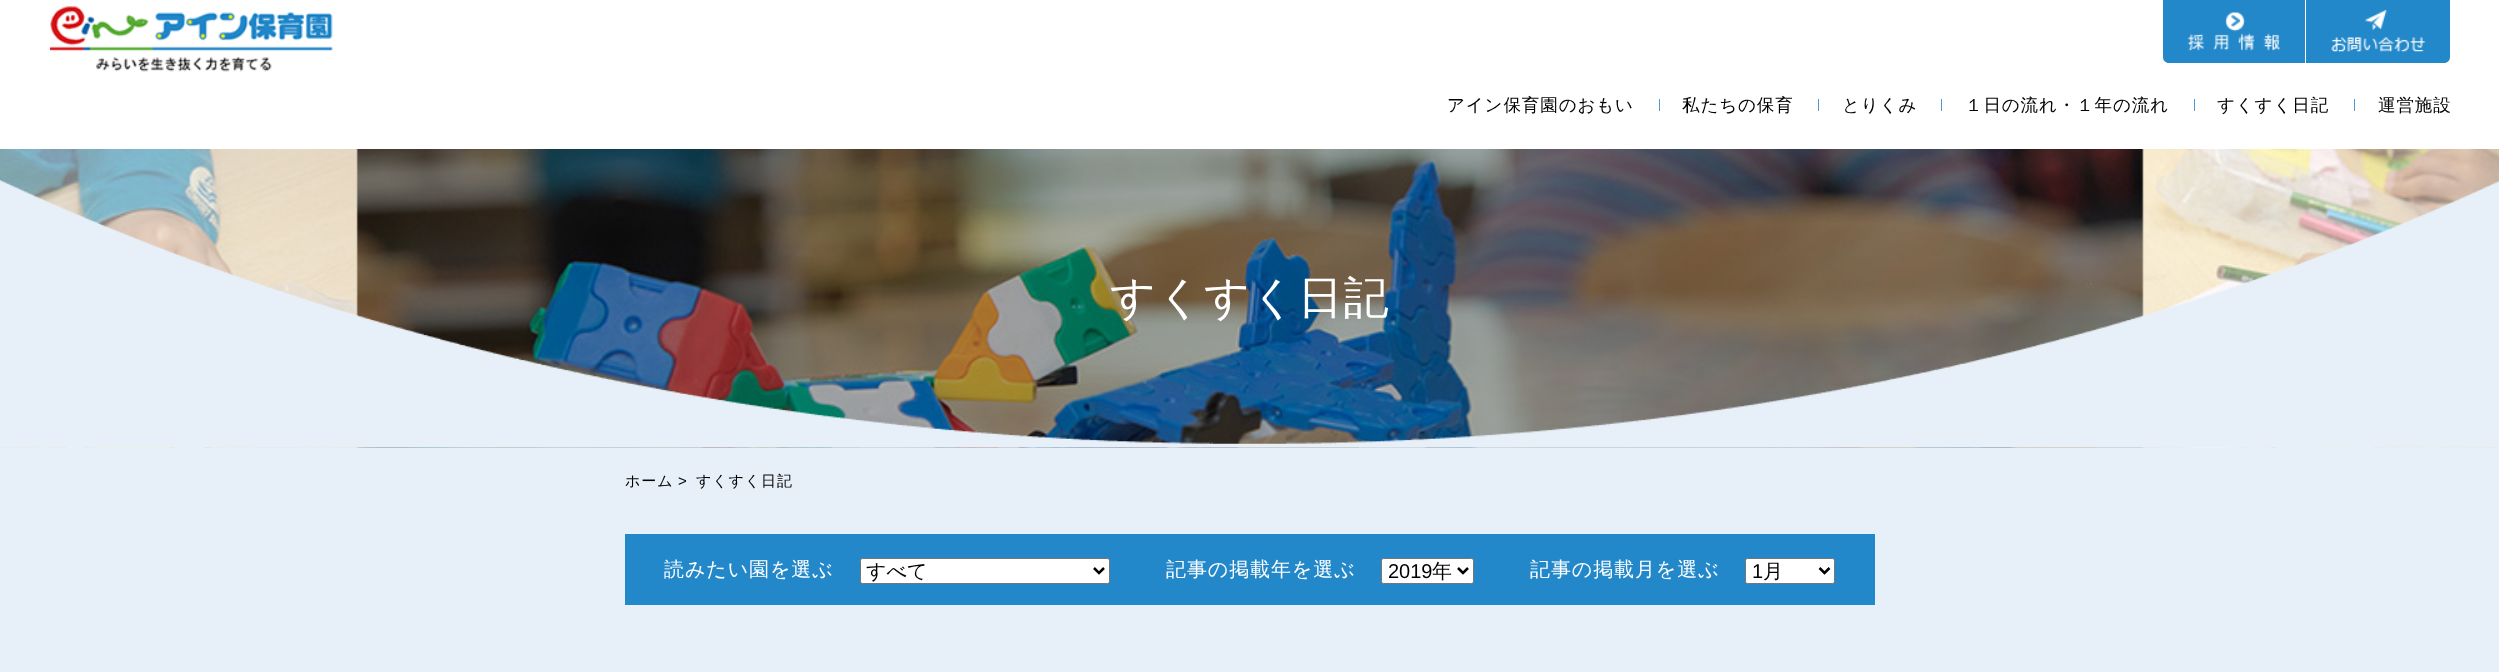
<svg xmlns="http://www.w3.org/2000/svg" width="2499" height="672">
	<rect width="100%" height="100%" fill="#E7F0F8" />
	<rect x="0" y="0" width="2499" height="149" fill="#FFFFFF" />
	<path d="M2163 0H2305V63H2169C2165.5 63 2163 60.5 2163 57Z" fill="#2388C9" />
	<image x="2187" y="12" width="93" height="39" href="assets/img1.png" />
	<path d="M2306 0H2450V57C2450 60.5 2447.5 63 2444 63H2306Z" fill="#2388C9" />
	<image x="2331" y="10" width="94" height="42" href="assets/img2.png" />
	<image x="50" y="6" width="283" height="66" href="assets/img3.png" />
	<text x="1447" y="111" font-family="WenQuanYi Zen Hei" font-size="17.5" font-weight="500" letter-spacing="0.9" fill="#000000">アイン保育園のおもい</text>
	<rect x="1659" y="99" width="1" height="12" fill="#5199D0" />
	<text x="1682" y="111" font-family="WenQuanYi Zen Hei" font-size="17.5" font-weight="500" letter-spacing="0.9" fill="#000000">私たちの保育</text>
	<rect x="1818" y="99" width="1" height="12" fill="#5199D0" />
	<text x="1842" y="111" font-family="WenQuanYi Zen Hei" font-size="17.5" font-weight="500" letter-spacing="0.9" fill="#000000">とりくみ</text>
	<rect x="1941" y="99" width="1" height="12" fill="#5199D0" />
	<text x="1965" y="111" font-family="WenQuanYi Zen Hei" font-size="17.5" font-weight="500" letter-spacing="0.9" fill="#000000">１日の流れ・１年の流れ</text>
	<rect x="2194" y="99" width="1" height="12" fill="#5199D0" />
	<text x="2217" y="111" font-family="WenQuanYi Zen Hei" font-size="17.5" font-weight="500" letter-spacing="0.9" fill="#000000">すくすく日記</text>
	<rect x="2354" y="99" width="1" height="12" fill="#5199D0" />
	<text x="2378" y="111" font-family="WenQuanYi Zen Hei" font-size="17.5" font-weight="500" letter-spacing="0.9" fill="#000000">運営施設</text>
	<image x="0" y="149" width="2499" height="299" href="assets/img5.png" />
	<text x="1110" y="313" font-family="WenQuanYi Zen Hei" font-size="45" font-weight="500" letter-spacing="0.9" fill="#FFFFFF">すくすく日記</text>
	<image x="0" y="179" width="2499" height="269" href="assets/img4.png" />
	<text x="625" y="486" font-family="WenQuanYi Zen Hei" font-size="15" font-weight="500" letter-spacing="0.9" fill="#000000">ホーム</text>
	<text x="678" y="486" font-family="Liberation Sans" font-size="15" letter-spacing="0.9" fill="#000000">&gt;</text>
	<text x="696" y="486" font-family="WenQuanYi Zen Hei" font-size="15" font-weight="500" letter-spacing="0.9" fill="#000000">すくすく日記</text>
	<rect x="625" y="534" width="1250" height="71" fill="#2388C9" />
	<text x="664" y="576" font-family="WenQuanYi Zen Hei" font-size="20" font-weight="500" letter-spacing="0.9" fill="#FFFFFF">読みたい園を選ぶ</text>
	<rect x="860.5" y="558.5" width="249" height="25" rx="2" fill="#FFFFFF" stroke="#767676" />
	<path d="M1094 568L1099 573L1104 568" fill="none" stroke="#000000" stroke-width="2.5" />
	<text x="866" y="578" font-family="WenQuanYi Zen Hei" font-size="20" font-weight="500" fill="#000000">すべて</text>
	<text x="1166" y="576" font-family="WenQuanYi Zen Hei" font-size="20" font-weight="500" letter-spacing="0.9" fill="#FFFFFF">記事の掲載年を選ぶ</text>
	<rect x="1381.5" y="558.5" width="92" height="25" rx="2" fill="#FFFFFF" stroke="#767676" />
	<path d="M1458 568L1463 573L1468 568" fill="none" stroke="#000000" stroke-width="2.5" />
	<text x="1388" y="578" font-family="Liberation Sans" font-size="20" fill="#000000">2019</text>
	<text x="1432" y="578" font-family="WenQuanYi Zen Hei" font-size="20" font-weight="500" fill="#000000">年</text>
	<text x="1530" y="576" font-family="WenQuanYi Zen Hei" font-size="20" font-weight="500" letter-spacing="0.9" fill="#FFFFFF">記事の掲載月を選ぶ</text>
	<rect x="1745.5" y="558.5" width="89" height="25" rx="2" fill="#FFFFFF" stroke="#767676" />
	<path d="M1819.5 568L1824.5 573L1829.5 568" fill="none" stroke="#000000" stroke-width="2.5" />
	<text x="1752" y="578" font-family="Liberation Sans" font-size="20" fill="#000000">1</text>
	<text x="1763" y="578" font-family="WenQuanYi Zen Hei" font-size="20" font-weight="500" fill="#000000">月</text>
</svg>
